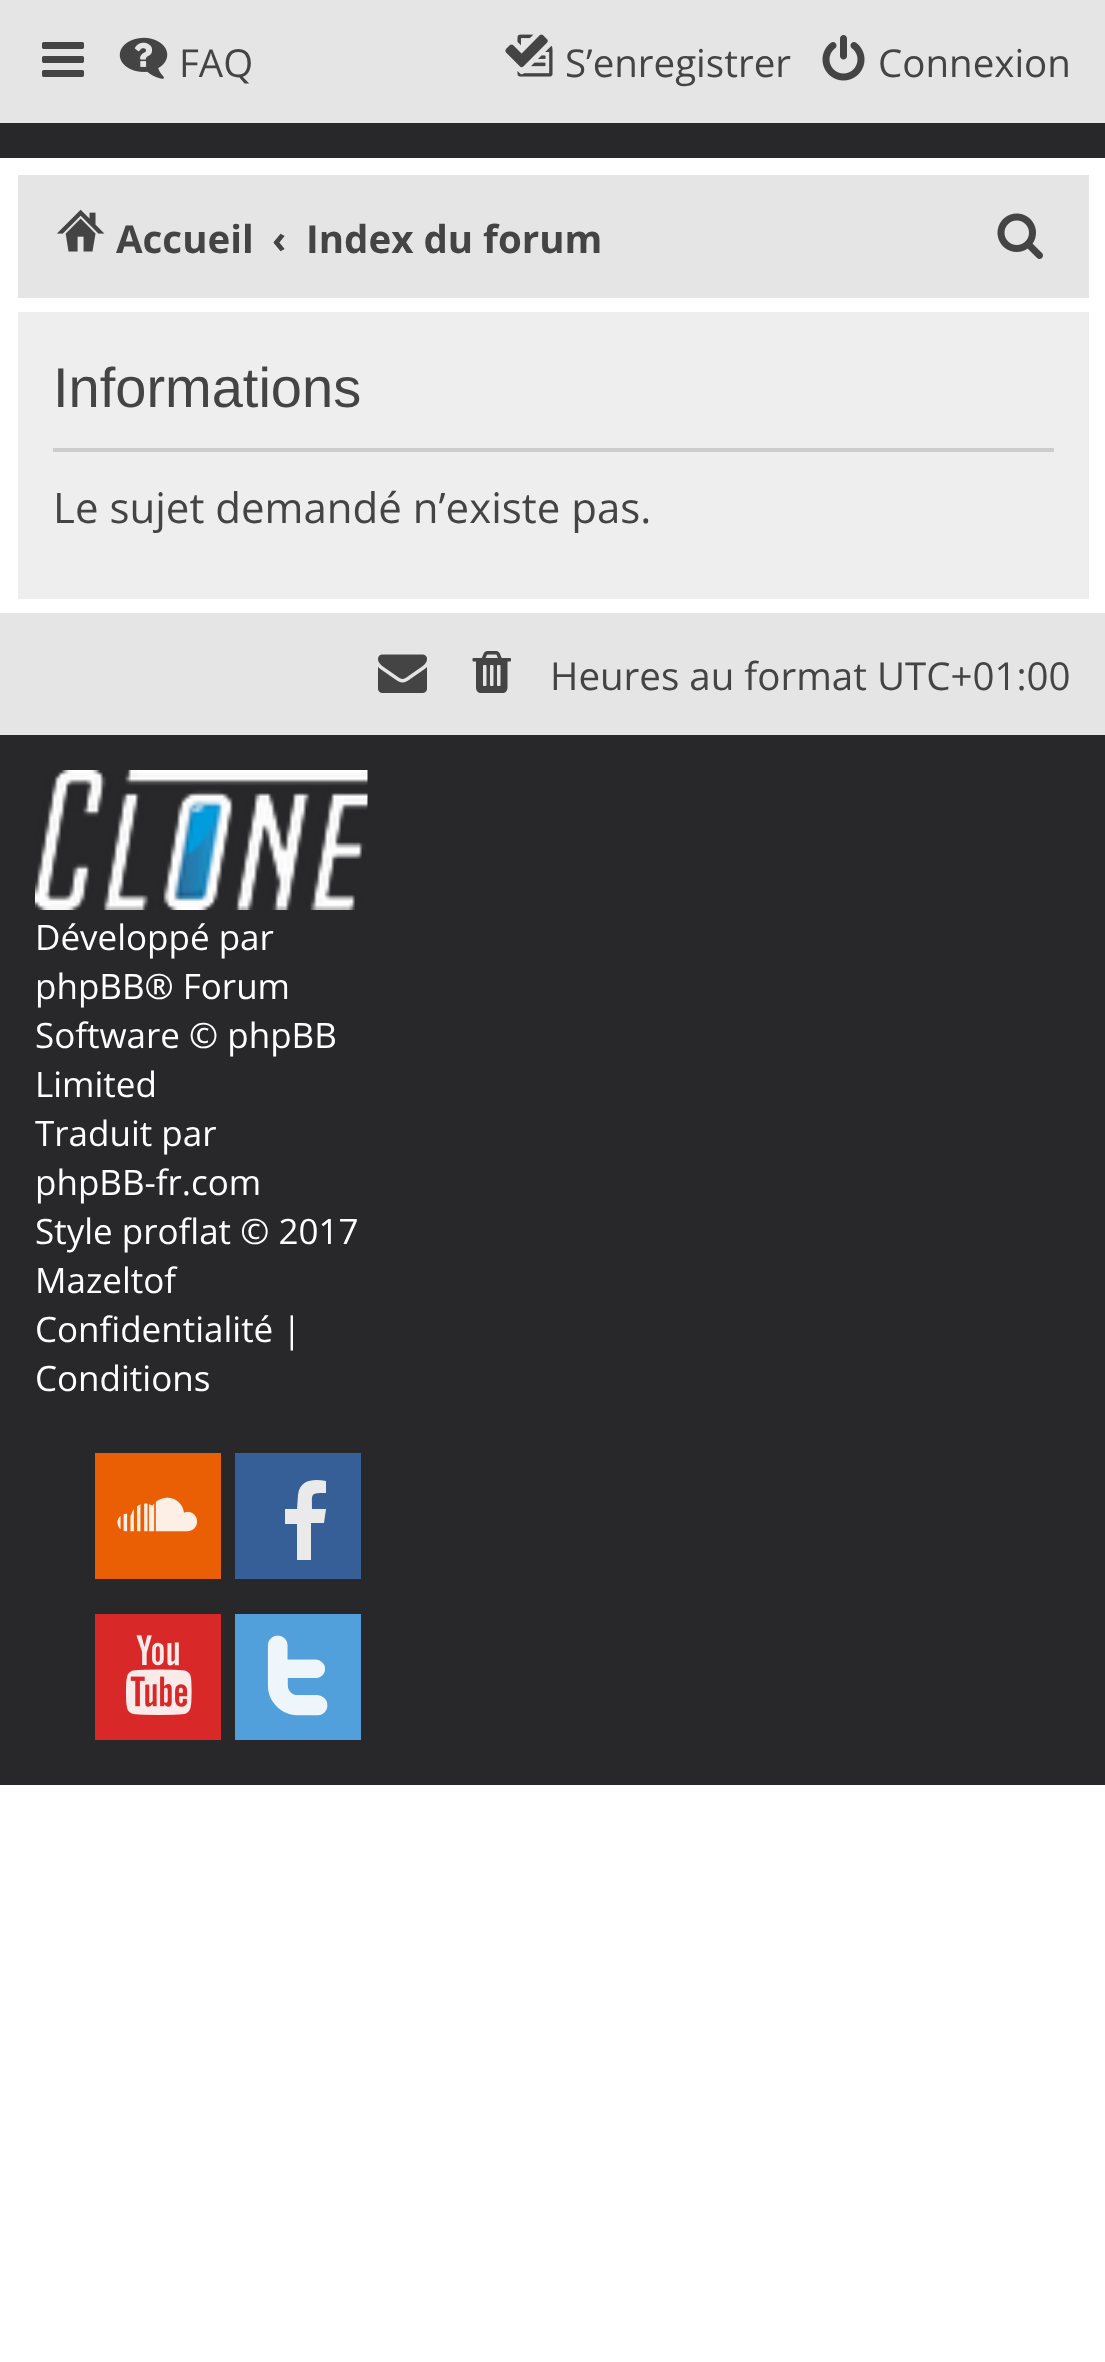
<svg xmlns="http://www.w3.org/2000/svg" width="1105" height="2362">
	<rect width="100%" height="100%" fill="#FFFFFF" />
	<rect x="0" y="0" width="1105" height="123" fill="#E5E5E5" />
	<image x="42" y="42" width="42" height="35" href="assets/img1.png" />
	<image x="119" y="37" width="49" height="42" href="assets/img2.png" />
	<text x="179" y="77" font-family="Open Sans" font-size="38.5" fill="#444444">FAQ</text>
	<image x="505" y="34" width="48" height="43" href="assets/img3.png" />
	<text x="565" y="77" font-family="Open Sans" font-size="38.5" fill="#444444">S’enregistrer</text>
	<image x="822" y="35" width="43" height="46" href="assets/img4.png" />
	<text x="878" y="77" font-family="Open Sans" font-size="38.5" fill="#444444">Connexion</text>
	<rect x="0" y="123" width="1105" height="35" fill="#28282B" />
	<rect x="18" y="175" width="1071" height="123" fill="#E5E5E5" />
	<image x="57" y="209" width="48" height="43" href="assets/img5.png" />
	<g font-family="Open Sans" font-size="38.5" font-weight="700" fill="#444444">
		<text x="116" y="253">Accueil</text>
		<text x="272" y="253">‹</text>
		<text x="306" y="253">Index du forum</text>
	</g>
	<image x="997" y="213" width="46" height="46" href="assets/img6.png" />
	<rect x="18" y="312" width="1071" height="287" fill="#EEEEEE" />
	<rect x="53" y="448" width="1001" height="4" fill="#CCCCCC" />
	<text x="53" y="407" font-family="Liberation Sans" font-size="56" fill="#444444">Informations</text>
	<text x="53" y="523" font-family="Open Sans" font-size="42" fill="#444444">Le sujet demandé n’existe pas.</text>
	<rect x="0" y="613" width="1105" height="122" fill="#E5E5E5" />
	<image x="378" y="654" width="49" height="39" href="assets/img7.png" />
	<image x="472" y="651" width="39" height="42" href="assets/img8.png" />
	<text x="550" y="690" font-family="Open Sans" font-size="38.5" fill="#444444">Heures au format UTC+01:00</text>
	<rect x="0" y="735" width="1105" height="1050" fill="#28282B" />
	<image x="35" y="770" width="333" height="140" href="assets/img9.png" />
	<g font-family="Open Sans" font-size="35" fill="#FFFFFF">
		<text x="35" y="950">Développé par</text>
		<text x="35" y="999">phpBB® Forum</text>
		<text x="35" y="1048">Software © phpBB</text>
		<text x="35" y="1097">Limited</text>
		<text x="35" y="1146">Traduit par</text>
		<text x="35" y="1195">phpBB-fr.com</text>
		<text x="35" y="1244">Style proflat © 2017</text>
		<text x="35" y="1293">Mazeltof</text>
		<text x="35" y="1342">Confidentialité |</text>
		<text x="35" y="1391">Conditions</text>
	</g>
	<rect x="95" y="1453" width="126" height="126" fill="#EA5E04" />
	<image x="117" y="1497" width="80" height="35" href="assets/img10.png" />
	<rect x="235" y="1453" width="126" height="126" fill="#365F97" />
	<path d="M326 1481V1493C310 1493 312 1493 312 1509H326L324 1523H311V1560H297V1524H285V1509H297L298 1495C300 1479 314 1479 326 1481Z" fill="#EAEAEA" />
	<rect x="95" y="1614" width="126" height="126" fill="#D82828" />
	<image x="125" y="1635" width="67" height="80" href="assets/img11.png" />
	<rect x="235" y="1614" width="126" height="126" fill="#519FDB" />
	<image x="267" y="1635" width="61" height="81" href="assets/img12.png" />
</svg>
